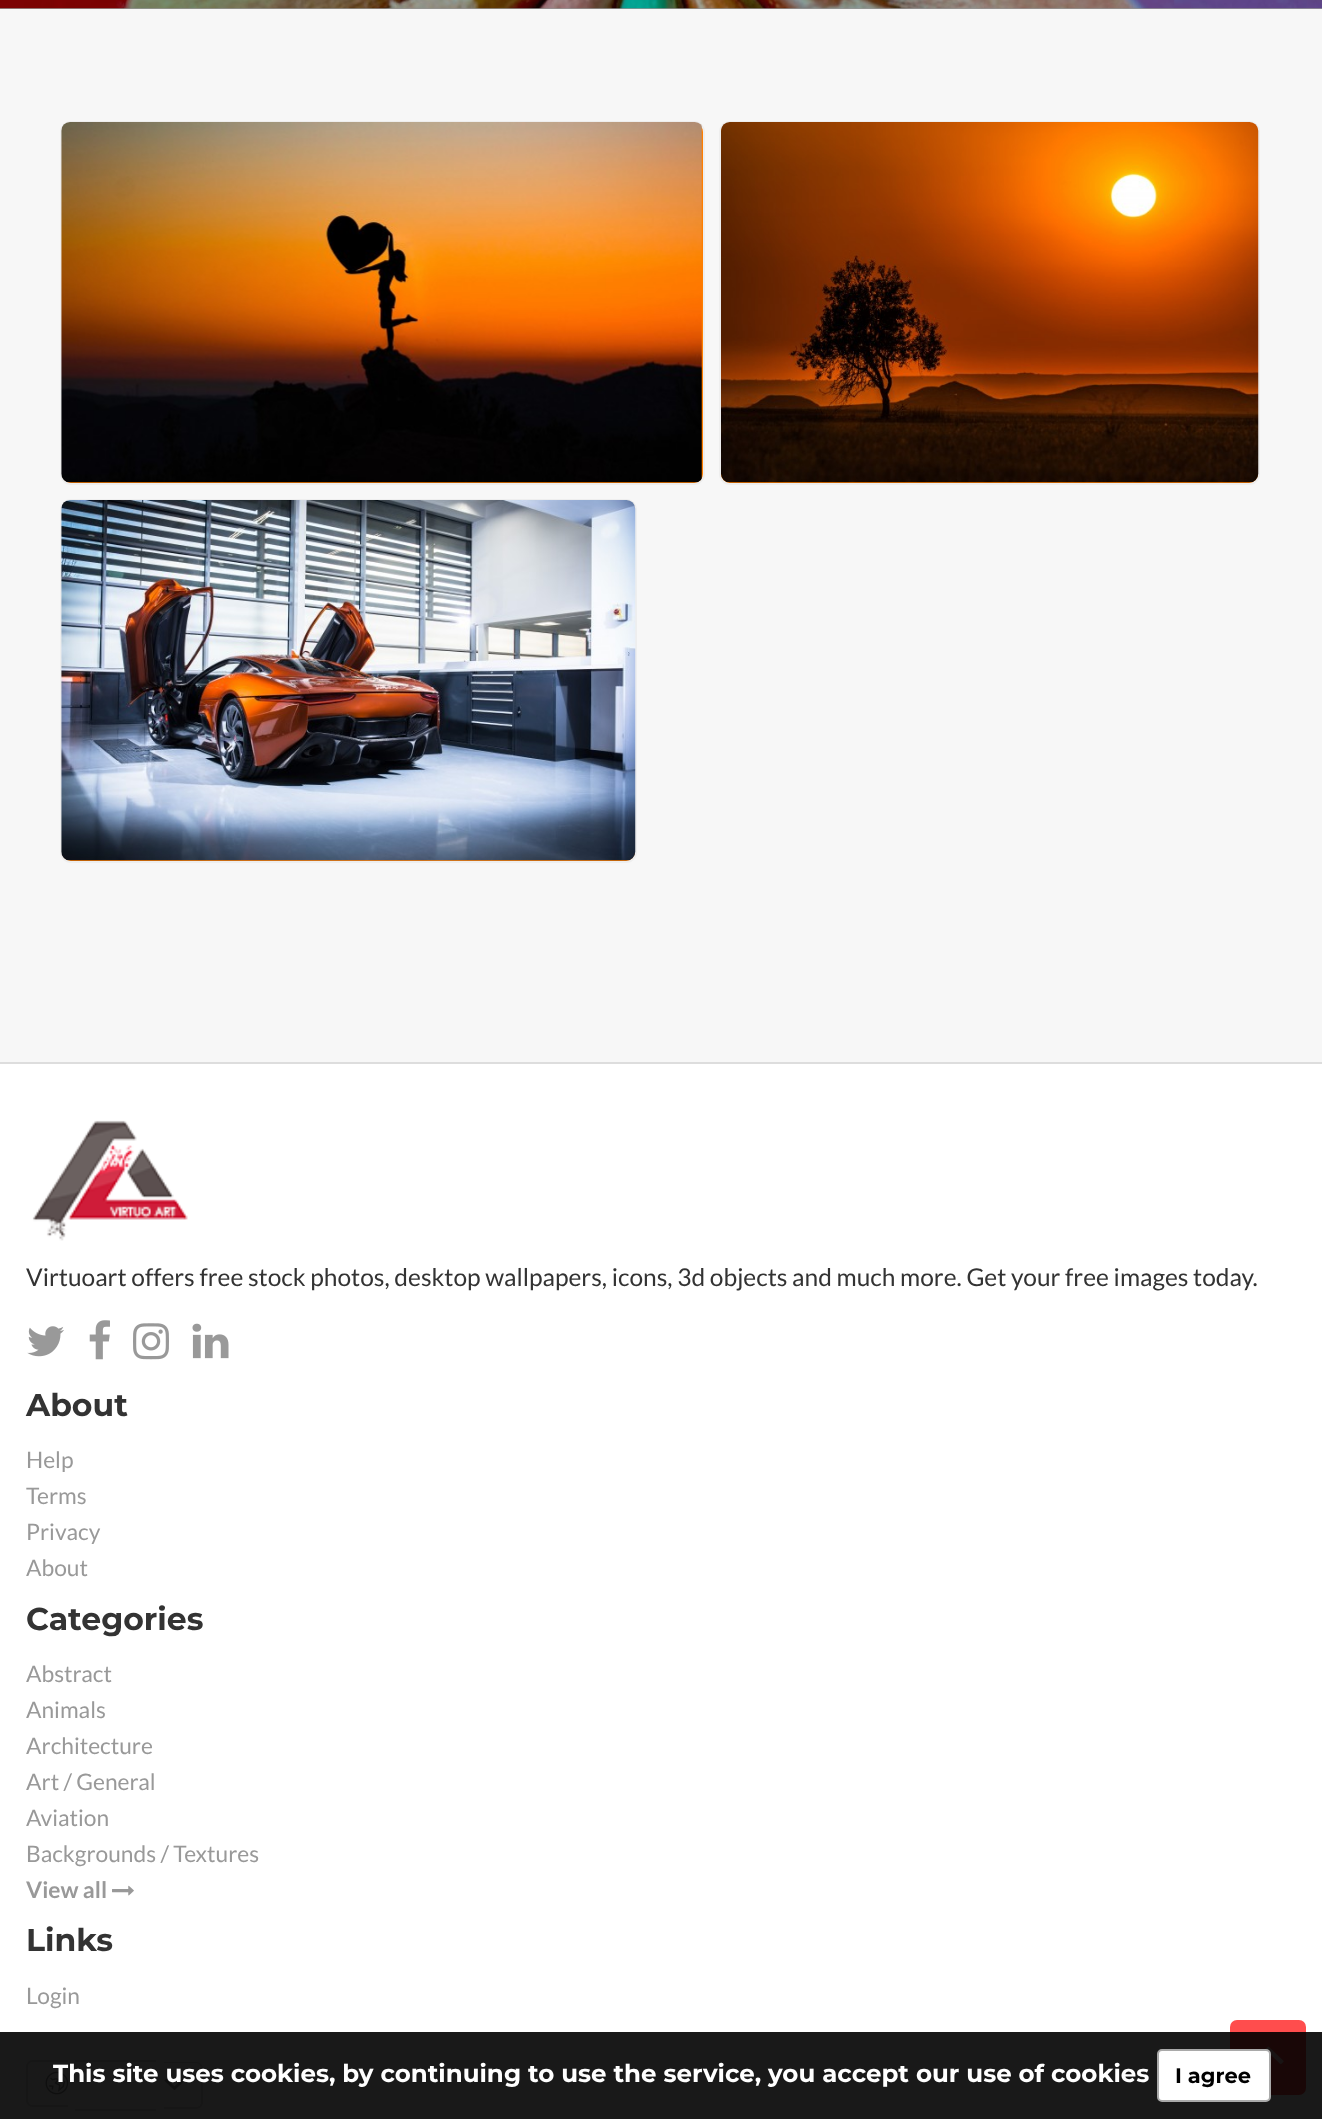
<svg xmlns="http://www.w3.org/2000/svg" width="1322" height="2119">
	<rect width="100%" height="100%" fill="#F7F7F7" />
	<rect x="0" y="8" width="1322" height="1" fill="#949494" />
	<image x="0" y="0" width="1322" height="9" href="assets/img1.png" />
	<rect x="61" y="122" width="643" height="362" rx="10" fill="#FE7E00" stroke="#EEEEEE" stroke-width="2" />
	<image x="61" y="122" width="641" height="361" href="assets/img2.png" />
	<rect x="720" y="122" width="539" height="362" rx="10" fill="#FE7E00" stroke="#EEEEEE" stroke-width="2" />
	<image x="721" y="122" width="538" height="361" href="assets/img3.png" />
	<rect x="61" y="500" width="575" height="362" rx="10" fill="#FE7E00" stroke="#EEEEEE" stroke-width="2" />
	<image x="61" y="500" width="575" height="361" href="assets/img4.png" />
	<rect x="0" y="1064" width="1322" height="1055" fill="#FFFFFF" />
	<rect x="0" y="1062" width="1322" height="2" fill="#DDDDDD" />
	<image x="32" y="1120" width="156" height="121" href="assets/img5.png" />
	<text x="26" y="1286" font-family="Lato" font-size="24.5" fill="#333333">Virtuoart offers free stock photos, desktop wallpapers, icons, 3d objects and much more. Get your free images today.</text>
	<image x="27" y="1326" width="37" height="31" href="assets/img6.png" />
	<image x="89" y="1320" width="21" height="40" href="assets/img7.png" />
	<image x="133" y="1323" width="36" height="37" href="assets/img8.png" />
	<image x="192" y="1323" width="37" height="36" href="assets/img9.png" />
	<text x="26" y="1416" font-family="Montserrat" font-size="31.5" font-weight="100" fill="#333333">About</text>
	<g font-family="Lato" font-size="22.75" fill="#999999">
		<text x="26" y="1468">Help</text>
		<text x="26" y="1504">Terms</text>
		<text x="26" y="1540">Privacy</text>
		<text x="26" y="1576">About</text>
	</g>
	<text x="26" y="1630" font-family="Montserrat" font-size="31.5" font-weight="100" fill="#333333">Categories</text>
	<g font-family="Lato" font-size="22.75" fill="#999999">
		<text x="26" y="1682">Abstract</text>
		<text x="26" y="1718">Animals</text>
		<text x="26" y="1754">Architecture</text>
		<text x="26" y="1790">Art / General</text>
		<text x="26" y="1826">Aviation</text>
		<text x="26" y="1862">Backgrounds / Textures</text>
	</g>
	<text x="26" y="1898" font-family="Lato" font-size="22.75" font-weight="700" fill="#999999">View all</text>
	<image x="112" y="1885" width="22" height="11" href="assets/img10.png" />
	<text x="26" y="1951" font-family="Montserrat" font-size="31.5" font-weight="100" fill="#333333">Links</text>
	<text x="26" y="2004" font-family="Lato" font-size="22.75" fill="#999999">Login</text>
	<path d="M33 2060H68V2107H33C29 2107 26 2104 26 2100V2067C26 2063 29 2060 33 2060ZM33 2062H68V2105H33C30 2105 28 2103 28 2100V2067C28 2064 30 2062 33 2062Z" fill="#DDDDDD" fill-rule="evenodd" />
	<rect x="75" y="2060" width="81" height="2" fill="#DDDDDD" />
	<rect x="75" y="2109" width="81" height="2" fill="#DDDDDD" />
	<path d="M164 2062H196C200 2062 203 2065 203 2068V2102C203 2106 200 2109 196 2109H164ZM164 2063H196C199 2063 201 2066 201 2068V2102C201 2105 199 2107 196 2107H164Z" fill="#DDDDDD" fill-rule="evenodd" />
	<image x="45" y="2071" width="24" height="24" href="assets/img11.png" />
	<image x="164" y="2078" width="21" height="13" href="assets/img12.png" />
	<rect x="1230" y="2020" width="76" height="75" rx="7" fill="#FF4D4D" />
	<image x="1265" y="2046" width="19" height="19" href="assets/img13.png" />
	<rect x="0" y="2032" width="1322" height="87" fill="#000000" fill-opacity="0.9" />
	<text x="53" y="2082" font-family="Montserrat" font-size="24.5" font-weight="100" fill="#FFFFFF">This site uses cookies, by continuing to use the service, you accept our use of cookies</text>
	<rect x="1158" y="2050" width="112" height="51" rx="4" fill="#FFFFFF" stroke="#A9A9A9" stroke-width="2" />
	<text x="1175" y="2083" font-family="Montserrat" font-size="21" font-weight="100" fill="#000000">I agree</text>
</svg>
